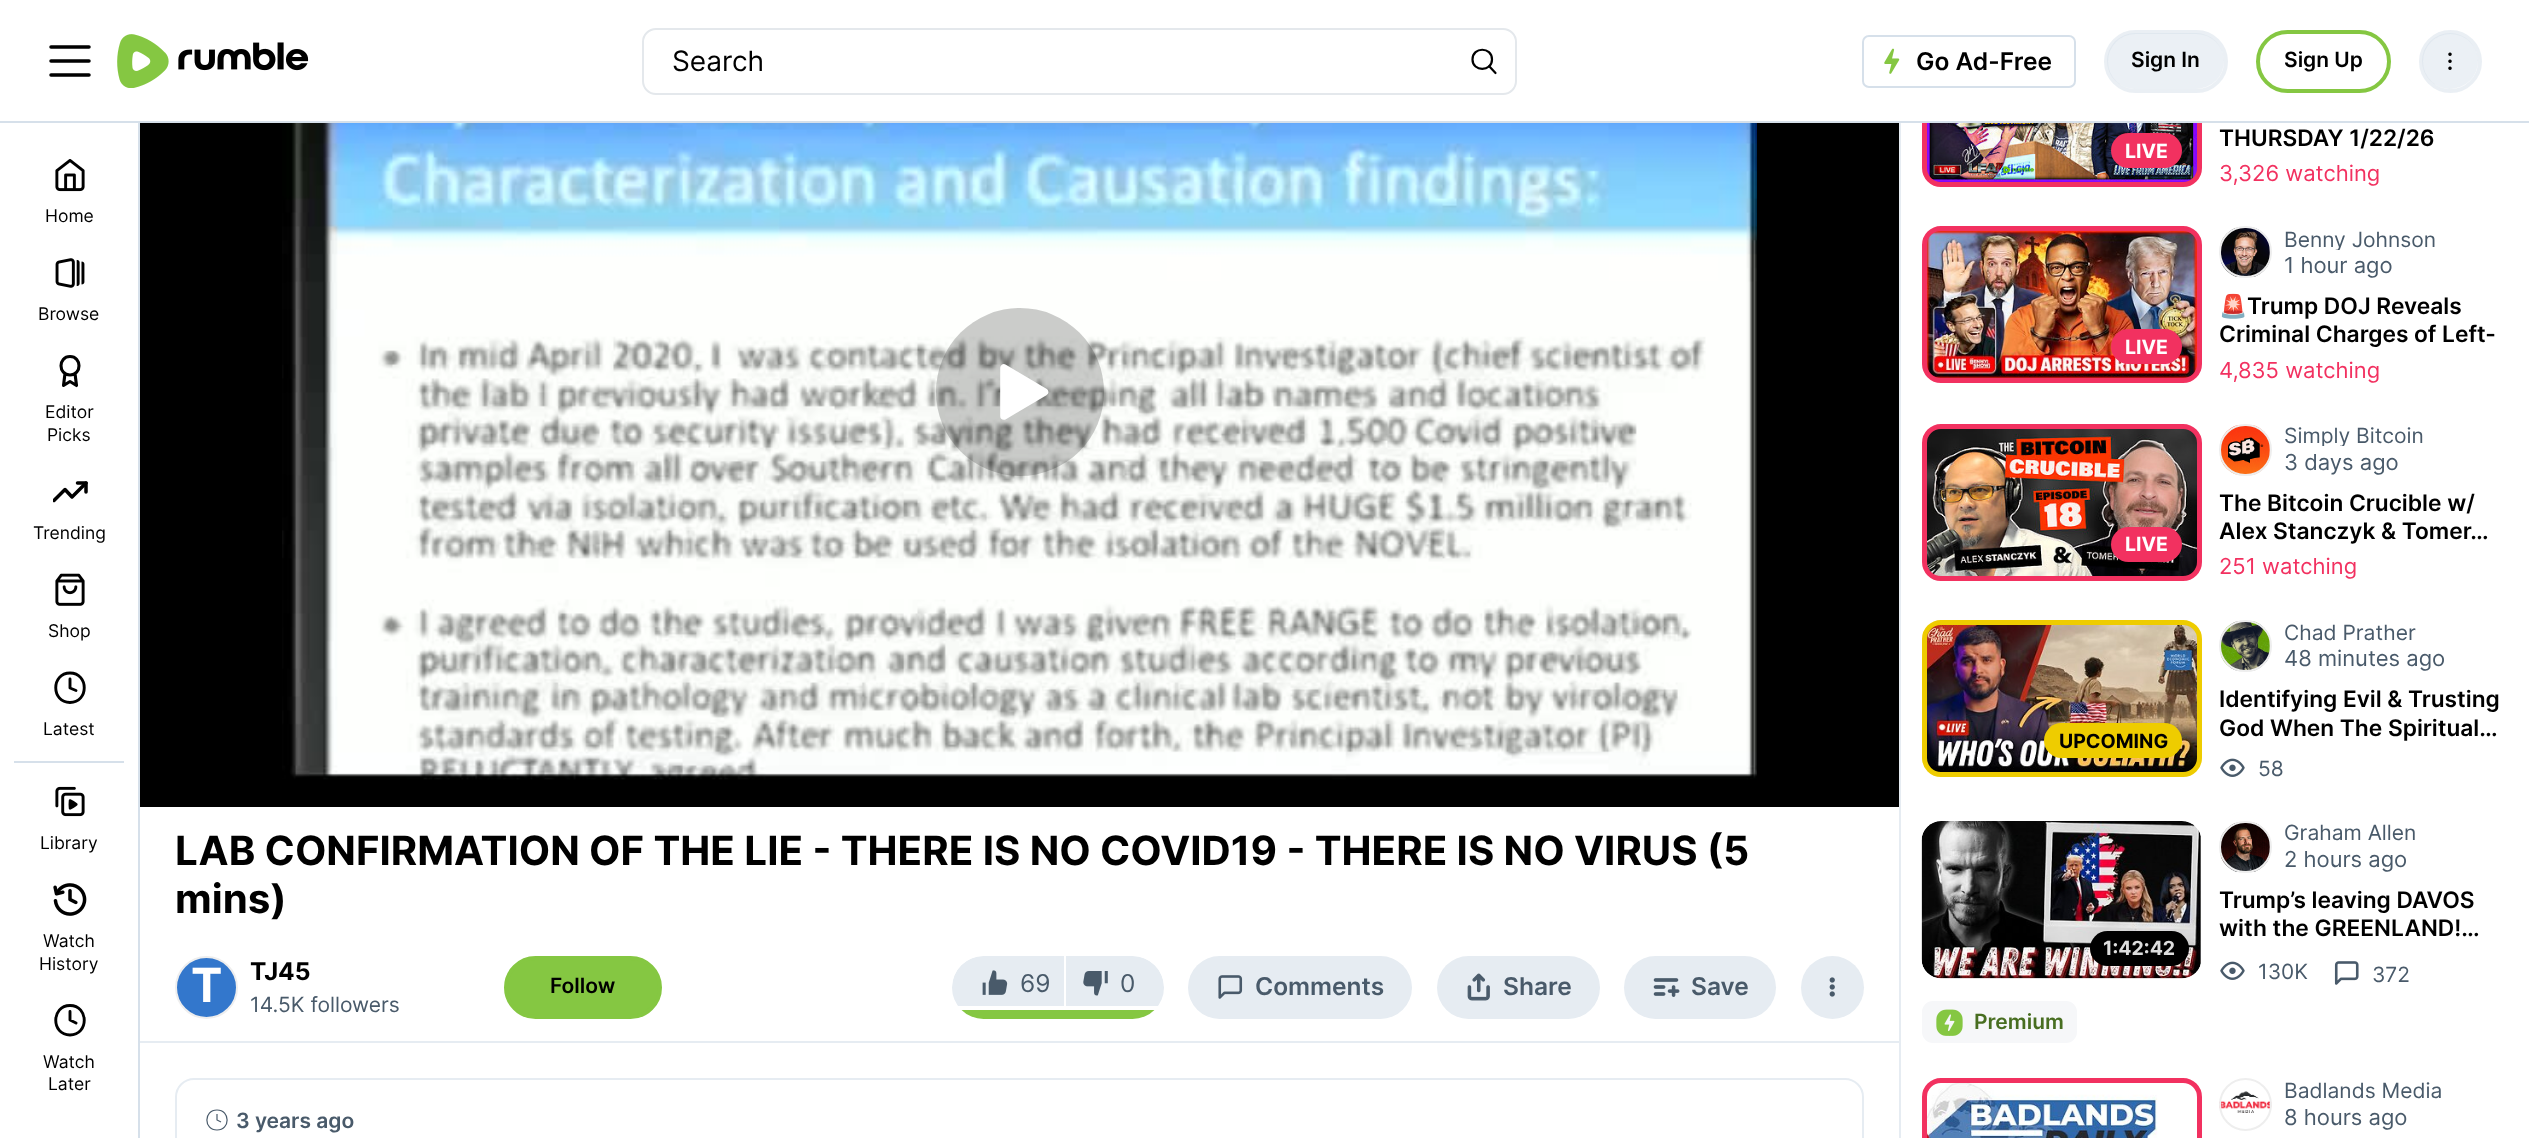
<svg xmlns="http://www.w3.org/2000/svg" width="2529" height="1138">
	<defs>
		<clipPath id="clip1"><rect x="53" y="474" width="35" height="35" /></clipPath>
		<clipPath id="clip2"><rect x="952" y="956" width="212" height="63" rx="31.5" /></clipPath>
		<clipPath id="clip3"><rect x="2284" y="228" width="152" height="22" /></clipPath>
		<clipPath id="clip4"><rect x="2284" y="424" width="140" height="22" /></clipPath>
	</defs>
	<rect width="100%" height="100%" fill="#FFFFFF" />
	<image x="1927" y="123" width="270" height="59" href="assets/img17.png" />
	<rect x="2111" y="133" width="71" height="35" rx="17.5" fill="#F23160" />
	<rect x="1924.5" y="32.5" width="275" height="152" rx="16.5" fill="none" stroke="#F23160" stroke-width="5" />
	<rect x="1922" y="30" width="280" height="91" fill="#FFFFFF" />
	<rect x="0" y="121" width="2529" height="2" fill="#D6E0EA" />
	<path d="M51 47H89M51 61H89M51 75H89" fill="none" stroke="#000000" stroke-width="3.5" stroke-linecap="round" stroke-linejoin="round" />
	<image x="117" y="34" width="52" height="54" href="assets/img1.png" />
	<image x="178" y="42" width="131" height="29" href="assets/img2.png" />
	<rect x="643" y="29" width="873" height="65" rx="13" fill="none" stroke="#E4E8EC" stroke-width="2" />
	<text x="672" y="71" font-family="Inter" font-size="28" fill="#000000">Search</text>
	<path d="M1489 66L1495.5 73M1472.5 59.5C1472.5 72 1492 72 1492 59.5C1492 46.5 1472.5 46.5 1472.5 59.5" fill="none" stroke="#000000" stroke-width="2.2" stroke-linecap="round" />
	<rect x="1863" y="36" width="212" height="51" rx="6" fill="none" stroke="#D6E0EA" stroke-width="2" />
	<image x="1884" y="48" width="16" height="26" href="assets/img3.png" />
	<text x="1916" y="70" font-family="Inter" font-size="24.5" font-weight="600" fill="#000000">Go Ad-Free</text>
	<rect x="2107" y="33" width="117" height="56" rx="28" fill="#EBF0F5" />
	<rect x="2106" y="32" width="120" height="59" rx="29.5" fill="none" stroke="#D6E0EA" stroke-opacity="0.5" stroke-width="4" />
	<text x="2131" y="67" font-family="Inter" font-size="21" font-weight="600" fill="#000000">Sign In</text>
	<rect x="2258" y="32" width="131" height="59" rx="29.5" fill="none" stroke="#85C742" stroke-width="4" />
	<text x="2284" y="67" font-family="Inter" font-size="21" font-weight="600" fill="#000000">Sign Up</text>
	<circle cx="2450" cy="61" r="28" fill="#EBF0F5" />
	<circle cx="2450.5" cy="61.5" r="29.5" fill="none" stroke="#D6E0EA" stroke-opacity="0.5" stroke-width="4" />
	<image x="2448" y="52" width="4" height="18" href="assets/img4.png" />
	<rect x="138" y="123" width="2" height="1015" fill="#D6E0EA" />
	<image x="55" y="159" width="30" height="33" href="assets/img5.png" />
	<text x="45" y="222" font-family="Inter" font-size="17.5" fill="#000000">Home</text>
	<image x="55" y="258" width="30" height="30" href="assets/img6.png" />
	<text x="38" y="320" font-family="Inter" font-size="17.5" fill="#000000">Browse</text>
	<path d="M70 375C82 375 82 356.5 70 356.5C58 356.5 58 375 70 375ZM65 373.5L63.5 385.5L70 381.5L76.5 385.5L75 373.5" fill="none" stroke="#000000" stroke-width="3.1" stroke-linecap="round" stroke-linejoin="round" />
	<g font-family="Inter" font-size="17.5" fill="#000000">
		<text x="45" y="418">Editor</text>
		<text x="47" y="441">Picks</text>
	</g>
	<g clip-path="url(#clip1)">
		<path d="M86 483L72 497L65 489.5L54 500.5" fill="none" stroke="#000000" stroke-width="3.5" stroke-linecap="round" stroke-linejoin="round" />
	</g>
	<path d="M77.5 483H86V492" fill="none" stroke="#000000" stroke-width="3.5" stroke-linecap="round" stroke-linejoin="round" />
	<text x="33" y="539" font-family="Inter" font-size="17.5" fill="#000000">Trending</text>
	<image x="55" y="573" width="30" height="33" href="assets/img7.png" />
	<text x="48" y="637" font-family="Inter" font-size="17.5" fill="#000000">Shop</text>
	<path d="M70 702.5C89 702.5 89 673 70 673C51 673 51 702.5 70 702.5ZM70 679V688L76 690.5" fill="none" stroke="#000000" stroke-width="2.9" stroke-linecap="round" stroke-linejoin="round" />
	<text x="43" y="735" font-family="Inter" font-size="17.5" fill="#000000">Latest</text>
	<rect x="14" y="761" width="110" height="2" fill="#D6E0EA" />
	<image x="55" y="786" width="30" height="31" href="assets/img8.png" />
	<text x="40" y="849" font-family="Inter" font-size="17.5" fill="#000000">Library</text>
	<image x="53" y="883" width="34" height="33" href="assets/img9.png" />
	<g font-family="Inter" font-size="17.5" fill="#000000">
		<text x="43" y="947">Watch</text>
		<text x="39" y="970">History</text>
	</g>
	<path d="M70 1035C89 1035 89 1005.5 70 1005.5C51 1005.5 51 1035 70 1035ZM70 1011.5V1020L76 1023" fill="none" stroke="#000000" stroke-width="2.9" stroke-linecap="round" stroke-linejoin="round" />
	<g font-family="Inter" font-size="17.5" fill="#000000">
		<text x="43" y="1068">Watch</text>
		<text x="48" y="1090">Later</text>
	</g>
	<rect x="140" y="123" width="1759" height="684" fill="#000000" />
	<image x="282" y="123" width="1475" height="657" href="assets/img10.png" />
	<circle cx="1020" cy="392" r="84" fill="#000000" fill-opacity="0.2" />
	<path d="M1044 392L1004 368V416Z" fill="#FFFFFF" />
	<path d="M1044.5 392L1004 368V416Z" fill="none" stroke="#FFFFFF" stroke-width="7.6" stroke-linejoin="round" />
	<rect x="140" y="1041" width="1759" height="2" fill="#E6ECF2" />
	<g font-family="Inter" font-size="40.25" font-weight="700" fill="#000000">
		<text x="175" y="865">LAB CONFIRMATION OF THE LIE - THERE IS NO COVID19 - THERE IS NO VIRUS (5</text>
		<text x="175" y="913">mins)</text>
	</g>
	<circle cx="206.5" cy="987.5" r="30.5" fill="#3377CC" stroke="#EEEEEE" stroke-width="2" />
	<text x="191" y="1002" font-family="Inter" font-size="47" font-weight="700" fill="#FFFFFF">T</text>
	<text x="250" y="980" font-family="Inter" font-size="24.5" font-weight="700" fill="#000000">TJ45</text>
	<text x="250" y="1012" font-family="Inter" font-size="21" fill="#495A6A">14.5K followers</text>
	<rect x="506" y="958" width="154" height="59" rx="29.5" fill="#85C742" stroke="#85C742" stroke-width="4" />
	<text x="550" y="993" font-family="Inter" font-size="21" font-weight="600" fill="#000000">Follow</text>
	<g clip-path="url(#clip2)">
		<path d="M983.5 956H1064V1006H952V987.5C952 970 966 956 983.5 956Z" fill="#E6ECF2" />
	</g>
	<image x="982" y="970" width="26" height="25" href="assets/img11.png" />
	<text x="1020" y="992" font-family="Inter" font-size="24.5" fill="#495A6A">69</text>
	<g clip-path="url(#clip2)">
		<path d="M1066 956H1132.5C1150 956 1164 970 1164 987.5V1006H1066Z" fill="#E6ECF2" />
	</g>
	<image x="1083" y="971" width="25" height="25" href="assets/img12.png" />
	<text x="1120" y="992" font-family="Inter" font-size="24.5" fill="#495A6A">0</text>
	<g clip-path="url(#clip2)">
		<rect x="952" y="1010" width="212" height="9" rx="4.5" fill="#85C742" />
	</g>
	<rect x="1188" y="956" width="224" height="63" rx="31.5" fill="#E6ECF2" />
	<image x="1218" y="975" width="25" height="24" href="assets/img13.png" />
	<text x="1255" y="995" font-family="Inter" font-size="24.5" font-weight="600" fill="#495A6A">Comments</text>
	<rect x="1437" y="956" width="163" height="63" rx="31.5" fill="#E6ECF2" />
	<image x="1467" y="973" width="23" height="28" href="assets/img14.png" />
	<text x="1503" y="995" font-family="Inter" font-size="24.5" font-weight="600" fill="#495A6A">Share</text>
	<rect x="1624" y="956" width="152" height="63" rx="31.5" fill="#E6ECF2" />
	<image x="1653" y="978" width="27" height="19" href="assets/img15.png" />
	<text x="1691" y="995" font-family="Inter" font-size="24.5" font-weight="600" fill="#495A6A">Save</text>
	<circle cx="1832.5" cy="987.5" r="31.5" fill="#E6ECF2" />
	<image x="1829" y="977" width="6" height="20" href="assets/img16.png" />
	<rect x="176" y="1079" width="1687" height="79" rx="18" fill="none" stroke="#E6ECF2" stroke-width="2" />
	<path d="M217 1130C230.5 1130 230.5 1110 217 1110C203.5 1110 203.5 1130 217 1130ZM217 1114V1120L221 1122" fill="none" stroke="#495A6A" stroke-width="1.2" />
	<text x="236" y="1128" font-family="Inter" font-size="21" font-weight="600" fill="#495A6A">3 years ago</text>
	<rect x="1899" y="123" width="2" height="1015" fill="#E6ECF2" />
	<text x="2125" y="158" font-family="Inter" font-size="19.5" font-weight="700" fill="#FFFFFF">LIVE</text>
	<text x="2219" y="146" font-family="Inter" font-size="22.75" font-weight="600" fill="#000000">THURSDAY 1/22/26</text>
	<text x="2219" y="181" font-family="Inter" font-size="22" fill="#F23160">3,326 watching</text>
	<image x="1927" y="231" width="270" height="147" href="assets/img18.png" />
	<rect x="2111" y="329" width="71" height="35" rx="17.5" fill="#F23160" />
	<rect x="1924.5" y="228.5" width="275" height="152" rx="16.5" fill="none" stroke="#F23160" stroke-width="5" />
	<text x="2125" y="354" font-family="Inter" font-size="19.5" font-weight="700" fill="#FFFFFF">LIVE</text>
	<image x="2220" y="227" width="50" height="50" href="assets/img19.png" />
	<rect x="2220" y="227" width="51" height="50" rx="25" fill="none" stroke="#EEEEEE" stroke-width="2" />
	<g clip-path="url(#clip3)">
		<text x="2284" y="247" font-family="Inter" font-size="21" fill="#495A6A">Benny Johnson</text>
	</g>
	<text x="2284" y="273" font-family="Inter" font-size="22" fill="#495A6A">1 hour ago</text>
	<text x="2219" y="314" font-family="Noto Color Emoji" font-size="22.75" font-weight="700" fill="#000000">🚨</text>
	<g font-family="Inter" font-size="22.75" font-weight="600" fill="#000000">
		<text x="2247" y="314">Trump DOJ Reveals</text>
		<text x="2219" y="342">Criminal Charges of Left-</text>
	</g>
	<text x="2219" y="378" font-family="Inter" font-size="22" fill="#F23160">4,835 watching</text>
	<image x="1927" y="429" width="270" height="147" href="assets/img20.png" />
	<rect x="2111" y="527" width="71" height="35" rx="17.5" fill="#F23160" />
	<rect x="1924.5" y="426.5" width="275" height="152" rx="16.5" fill="none" stroke="#F23160" stroke-width="5" />
	<text x="2125" y="551" font-family="Inter" font-size="19.5" font-weight="700" fill="#FFFFFF">LIVE</text>
	<image x="2220" y="425" width="50" height="50" href="assets/img21.png" />
	<rect x="2220" y="425" width="51" height="50" rx="25" fill="none" stroke="#EEEEEE" stroke-width="2" />
	<g clip-path="url(#clip4)">
		<text x="2284" y="443" font-family="Inter" font-size="21" fill="#495A6A">Simply Bitcoin</text>
	</g>
	<text x="2284" y="470" font-family="Inter" font-size="22" fill="#495A6A">3 days ago</text>
	<g font-family="Inter" font-size="22.75" font-weight="600" fill="#000000">
		<text x="2219" y="511">The Bitcoin Crucible w/</text>
		<text x="2219" y="539">Alex Stanczyk &amp; Tomer…</text>
	</g>
	<text x="2219" y="574" font-family="Inter" font-size="22" fill="#F23160">251 watching</text>
	<image x="1927" y="625" width="270" height="147" href="assets/img22.png" />
	<rect x="2044" y="723" width="138" height="35" rx="17.5" fill="#EECC00" />
	<rect x="1924.5" y="622.5" width="275" height="152" rx="16.5" fill="none" stroke="#EECC00" stroke-width="5" />
	<text x="2059" y="748" font-family="Inter" font-size="19.5" font-weight="700" fill="#000000">UPCOMING</text>
	<image x="2220" y="621" width="50" height="50" href="assets/img23.png" />
	<rect x="2220" y="621" width="51" height="50" rx="25" fill="none" stroke="#EEEEEE" stroke-width="2" />
	<text x="2284" y="640" font-family="Inter" font-size="21" fill="#495A6A">Chad Prather</text>
	<text x="2284" y="666" font-family="Inter" font-size="22" fill="#495A6A">48 minutes ago</text>
	<g font-family="Inter" font-size="22.75" font-weight="600" fill="#000000">
		<text x="2219" y="707">Identifying Evil &amp; Trusting</text>
		<text x="2219" y="736">God When The Spiritual…</text>
	</g>
	<image x="2220" y="758" width="25" height="19" href="assets/img24.png" />
	<text x="2258" y="776" font-family="Inter" font-size="21" fill="#495A6A">58</text>
	<image x="1921" y="821" width="280" height="158" href="assets/img25.png" />
	<rect x="2090" y="931" width="99" height="35" rx="17.5" fill="#000000" />
	<text x="2103" y="955" font-family="Inter" font-size="19.5" font-weight="700" fill="#DDDDDD">1:42:42</text>
	<image x="2220" y="822" width="50" height="50" href="assets/img26.png" />
	<rect x="2220" y="822" width="51" height="50" rx="25" fill="none" stroke="#EEEEEE" stroke-width="2" />
	<text x="2284" y="840" font-family="Inter" font-size="21" fill="#495A6A">Graham Allen</text>
	<text x="2284" y="867" font-family="Inter" font-size="22" fill="#495A6A">2 hours ago</text>
	<g font-family="Inter" font-size="22.75" font-weight="600" fill="#000000">
		<text x="2219" y="908">Trump’s leaving DAVOS</text>
		<text x="2219" y="936">with the GREENLAND!…</text>
	</g>
	<image x="2220" y="961" width="25" height="19" href="assets/img24.png" />
	<text x="2258" y="979" font-family="Inter" font-size="21" fill="#495A6A">130K</text>
	<image x="2334" y="961" width="25" height="24" href="assets/img27.png" />
	<text x="2372" y="982" font-family="Inter" font-size="21" fill="#495A6A">372</text>
	<rect x="1922" y="1001" width="155" height="42" rx="11" fill="#F6F7F9" />
	<image x="1936" y="1009" width="27" height="27" href="assets/img28.png" />
	<text x="1974" y="1029" font-family="Inter" font-size="21" font-weight="600" fill="#486E21">Premium</text>
	<image x="1927" y="1083" width="231" height="55" href="assets/img29.png" />
	<rect x="1924.5" y="1080.5" width="275" height="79" rx="16.5" fill="none" stroke="#F23160" stroke-width="5" />
	<image x="2219" y="1091" width="53" height="22" href="assets/img30.png" />
	<circle cx="2245.5" cy="1104.5" r="25.5" fill="none" stroke="#EEEEEE" stroke-width="2" />
	<text x="2284" y="1098" font-family="Inter" font-size="21" fill="#495A6A">Badlands Media</text>
	<text x="2284" y="1125" font-family="Inter" font-size="22" fill="#495A6A">8 hours ago</text>
</svg>
